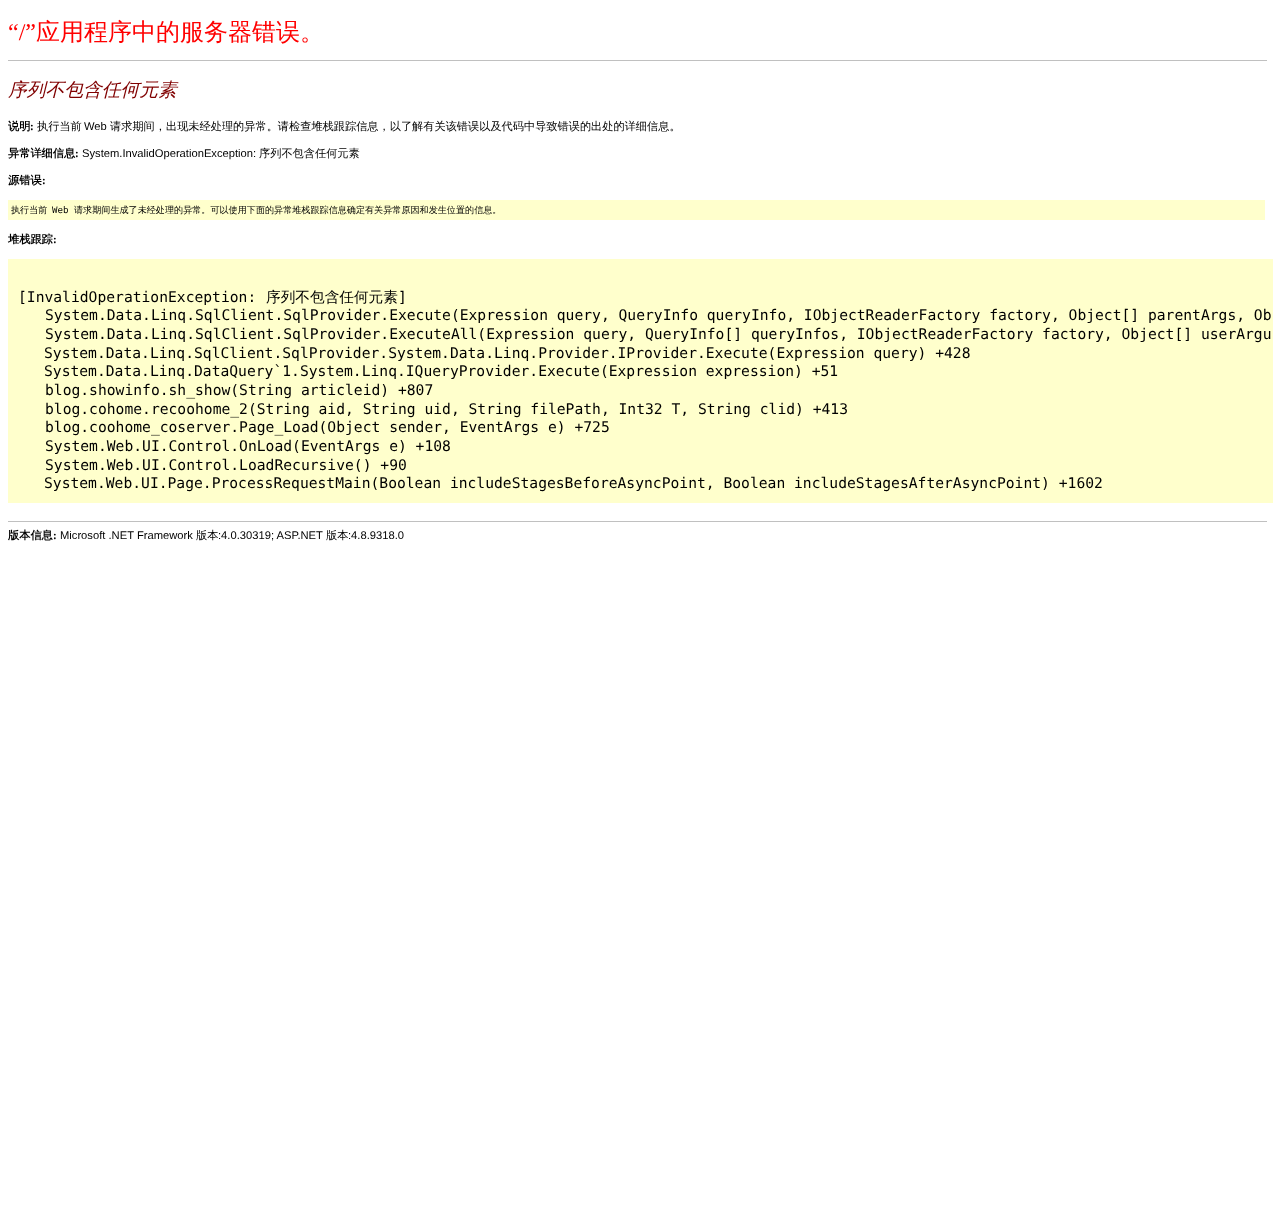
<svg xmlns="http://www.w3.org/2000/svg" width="1273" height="1229">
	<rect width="100%" height="100%" fill="#FFFFFF" />
	<text x="8" y="40" font-family="Liberation Serif" font-size="24" fill="#FF0000">“/”</text>
	<text x="36" y="40" font-family="WenQuanYi Zen Hei" font-size="24" font-weight="500" fill="#FF0000">应用程序中的服务器错误。</text>
	<rect x="8" y="60" width="1259" height="1" fill="#C0C0C0" />
	<text x="8" y="96" font-family="WenQuanYi Zen Hei" font-size="18.75" font-weight="500" font-style="italic" fill="#800000">序列不包含任何元素</text>
	<text x="8" y="130" font-family="WenQuanYi Zen Hei" font-size="11.2" font-weight="700" fill="#000000">说明</text>
	<text x="30" y="130" font-family="Liberation Serif" font-size="11.2" font-weight="700" fill="#000000">:</text>
	<text x="37" y="130" font-family="WenQuanYi Zen Hei" font-size="11.2" font-weight="500" fill="#000000">执行当前</text>
	<text x="84" y="130" font-family="Liberation Sans" font-size="11.2" fill="#000000">Web</text>
	<text x="110" y="130" font-family="WenQuanYi Zen Hei" font-size="11.2" font-weight="500" fill="#000000">请求期间，出现未经处理的异常。请检查堆栈跟踪信息，以了解有关该错误以及代码中导致错误的出处的详细信息。</text>
	<text x="8" y="157" font-family="WenQuanYi Zen Hei" font-size="11.2" font-weight="700" fill="#000000">异常详细信息</text>
	<text x="75" y="157" font-family="Liberation Serif" font-size="11.2" font-weight="700" fill="#000000">:</text>
	<text x="82" y="157" font-family="Liberation Sans" font-size="11.2" fill="#000000">System.InvalidOperationException:</text>
	<text x="259" y="157" font-family="WenQuanYi Zen Hei" font-size="11.2" font-weight="500" fill="#000000">序列不包含任何元素</text>
	<text x="8" y="184" font-family="WenQuanYi Zen Hei" font-size="11.2" font-weight="700" fill="#000000">源错误</text>
	<text x="42" y="184" font-family="Liberation Serif" font-size="11.2" font-weight="700" fill="#000000">:</text>
	<rect x="8" y="200" width="1257" height="20" fill="#FFFFCC" />
	<text x="11" y="213" font-family="WenQuanYi Zen Hei" font-size="9.1" font-weight="500" fill="#000000">执行当前</text>
	<text x="52" y="213" font-family="DejaVu Sans Mono" font-size="9.1" fill="#000000">Web</text>
	<text x="74" y="213" font-family="WenQuanYi Zen Hei" font-size="9.1" font-weight="500" fill="#000000">请求期间生成了未经处理的异常。可以使用下面的异常堆栈跟踪信息确定有关异常原因和发生位置的信息。</text>
	<text x="8" y="243" font-family="WenQuanYi Zen Hei" font-size="11.2" font-weight="700" fill="#000000">堆栈跟踪</text>
	<text x="53" y="243" font-family="Liberation Serif" font-size="11.2" font-weight="700" fill="#000000">:</text>
	<rect x="8" y="259" width="1265" height="244" fill="#FFFFCC" />
	<text x="18" y="302" font-family="DejaVu Sans Mono" font-size="14.67" fill="#000000">[InvalidOperationException:</text>
	<text x="266" y="302" font-family="WenQuanYi Zen Hei" font-size="14.67" font-weight="500" fill="#000000">序列不包含任何元素</text>
	<g font-family="DejaVu Sans Mono" font-size="14.67" fill="#000000">
		<text x="398" y="302">]</text>
		<text x="45" y="320">System.Data.Linq.SqlClient.SqlProvider.Execute(Expression query, QueryInfo queryInfo, IObjectReaderFactory factory, Object[] parentArgs, Ob</text>
		<text x="45" y="339">System.Data.Linq.SqlClient.SqlProvider.ExecuteAll(Expression query, QueryInfo[] queryInfos, IObjectReaderFactory factory, Object[] userArgu</text>
		<text x="44" y="358">System.Data.Linq.SqlClient.SqlProvider.System.Data.Linq.Provider.IProvider.Execute(Expression query) +428</text>
		<text x="44" y="376">System.Data.Linq.DataQuery`1.System.Linq.IQueryProvider.Execute(Expression expression) +51</text>
		<text x="45" y="395">blog.showinfo.sh_show(String articleid) +807</text>
		<text x="45" y="414">blog.cohome.recoohome_2(String aid, String uid, String filePath, Int32 T, String clid) +413</text>
		<text x="45" y="432">blog.coohome_coserver.Page_Load(Object sender, EventArgs e) +725</text>
		<text x="45" y="451">System.Web.UI.Control.OnLoad(EventArgs e) +108</text>
		<text x="45" y="470">System.Web.UI.Control.LoadRecursive() +90</text>
		<text x="44" y="488">System.Web.UI.Page.ProcessRequestMain(Boolean includeStagesBeforeAsyncPoint, Boolean includeStagesAfterAsyncPoint) +1602</text>
	</g>
	<rect x="8" y="521" width="1259" height="1" fill="#C0C0C0" />
	<text x="8" y="539" font-family="WenQuanYi Zen Hei" font-size="11.2" font-weight="700" fill="#000000">版本信息</text>
	<text x="53" y="539" font-family="Liberation Serif" font-size="11.2" font-weight="700" fill="#000000">:</text>
	<text x="60" y="539" font-family="Liberation Sans" font-size="11.2" fill="#000000">Microsoft .NET Framework</text>
	<text x="196" y="539" font-family="WenQuanYi Zen Hei" font-size="11.2" font-weight="500" fill="#000000">版本</text>
	<text x="218" y="539" font-family="Liberation Sans" font-size="11.2" fill="#000000">:4.0.30319; ASP.NET</text>
	<text x="326" y="539" font-family="WenQuanYi Zen Hei" font-size="11.2" font-weight="500" fill="#000000">版本</text>
	<text x="348" y="539" font-family="Liberation Sans" font-size="11.2" fill="#000000">:4.8.9318.0</text>
</svg>
